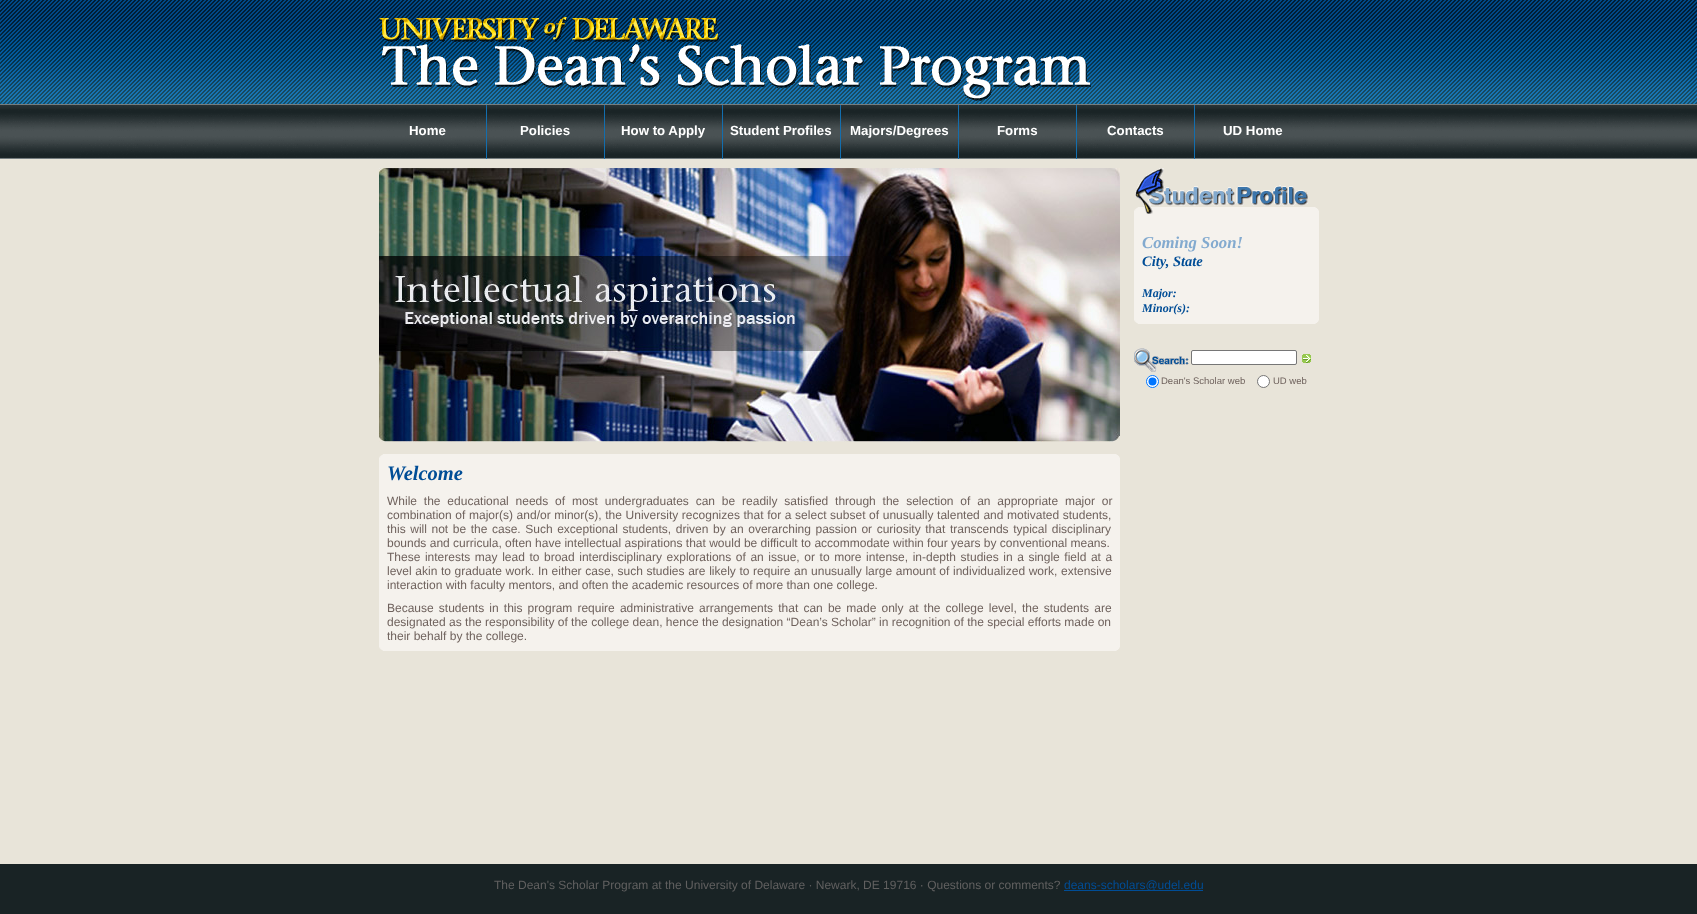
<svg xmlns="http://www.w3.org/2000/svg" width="1697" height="914">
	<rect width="100%" height="100%" fill="#E8E4D9" />
	<image x="0" y="0" width="1697" height="159" href="assets/img1.png" />
	<image x="379" y="17" width="712" height="84" href="assets/img2.png" />
	<rect x="486" y="105" width="1" height="54" fill="#136EAE" />
	<text x="409" y="135" font-family="Liberation Sans" font-size="13.25" font-weight="700" fill="#FFFFFF">Home</text>
	<rect x="604" y="105" width="1" height="54" fill="#136EAE" />
	<text x="520" y="135" font-family="Liberation Sans" font-size="13.25" font-weight="700" fill="#FFFFFF">Policies</text>
	<rect x="722" y="105" width="1" height="54" fill="#136EAE" />
	<text x="621" y="135" font-family="Liberation Sans" font-size="13.25" font-weight="700" fill="#FFFFFF">How to Apply</text>
	<rect x="840" y="105" width="1" height="54" fill="#136EAE" />
	<text x="730" y="135" font-family="Liberation Sans" font-size="13.25" font-weight="700" fill="#FFFFFF">Student Profiles</text>
	<rect x="958" y="105" width="1" height="54" fill="#136EAE" />
	<text x="850" y="135" font-family="Liberation Sans" font-size="13.25" font-weight="700" fill="#FFFFFF">Majors/Degrees</text>
	<rect x="1076" y="105" width="1" height="54" fill="#136EAE" />
	<text x="997" y="135" font-family="Liberation Sans" font-size="13.25" font-weight="700" fill="#FFFFFF">Forms</text>
	<rect x="1194" y="105" width="1" height="54" fill="#136EAE" />
	<g font-family="Liberation Sans" font-size="13.25" font-weight="700" fill="#FFFFFF">
		<text x="1107" y="135">Contacts</text>
		<text x="1223" y="135">UD Home</text>
	</g>
	<rect x="1134" y="207" width="185" height="117" fill="#F5F2ED" />
	<image x="1134" y="207" width="4" height="4" href="assets/img5.png" />
	<image x="1135" y="168" width="173" height="46" href="assets/img3.png" />
	<image x="1315" y="207" width="4" height="4" href="assets/img4.png" />
	<text x="1142" y="248" font-family="Liberation Serif" font-size="16.75" font-weight="700" font-style="italic" fill="#83AACF">Coming Soon!</text>
	<text x="1142" y="266" font-family="Liberation Serif" font-size="14.5" font-weight="700" font-style="italic" fill="#004D96">City, State</text>
	<g font-family="Liberation Serif" font-size="12" font-weight="700" font-style="italic" fill="#004D96">
		<text x="1142" y="297">Major:</text>
		<text x="1142" y="312">Minor(s):</text>
	</g>
	<image x="1315" y="320" width="4" height="4" href="assets/img6.png" />
	<image x="1134" y="320" width="4" height="4" href="assets/img7.png" />
	<image x="1134" y="348" width="55" height="24" href="assets/img8.png" />
	<rect x="1191.5" y="350.5" width="105" height="14" rx="1.5" fill="#FFFFFF" stroke="#767676" />
	<image x="1302" y="354" width="9" height="9" href="assets/img9.png" />
	<circle cx="1152.5" cy="381.5" r="6" fill="#FFFFFF" stroke="#0075FF" />
	<circle cx="1152.5" cy="381.5" r="4" fill="#0075FF" />
	<text x="1161" y="384" font-family="Liberation Sans" font-size="9.5" fill="#6F625D">Dean's Scholar web</text>
	<circle cx="1263.5" cy="381.5" r="6" fill="#FFFFFF" stroke="#767676" />
	<text x="1273" y="384" font-family="Liberation Sans" font-size="9.5" fill="#6F625D">UD web</text>
	<image x="379" y="168" width="741" height="274" href="assets/img10.png" />
	<rect x="379" y="454" width="741" height="197" fill="#F5F2ED" />
	<image x="1116" y="454" width="4" height="4" href="assets/img4.png" />
	<image x="379" y="454" width="4" height="4" href="assets/img5.png" />
	<text x="387" y="480" font-family="Liberation Serif" font-size="20.5" font-weight="700" font-style="italic" fill="#004D96">Welcome</text>
	<g font-family="Liberation Sans" font-size="12" fill="#6F625D">
		<text x="387" y="505" word-spacing="3.5">While the educational needs of most undergraduates can be readily satisfied through the selection of an appropriate major or</text>
		<text x="387" y="519" word-spacing="0.3">combination of major(s) and/or minor(s), the University recognizes that for a select subset of unusually talented and motivated students,</text>
		<text x="387" y="533" word-spacing="1.25">this will not be the case. Such exceptional students, driven by an overarching passion or curiosity that transcends typical disciplinary</text>
		<text x="387" y="547">bounds and curricula, often have intellectual aspirations that would be difficult to accommodate within four years by conventional means.</text>
		<text x="387" y="561" word-spacing="1.25">These interests may lead to broad interdisciplinary explorations of an issue, or to more intense, in-depth studies in a single field at a</text>
		<text x="387" y="575" word-spacing="0.3">level akin to graduate work. In either case, such studies are likely to require an unusually large amount of individualized work, extensive</text>
		<text x="387" y="589">interaction with faculty mentors, and often the academic resources of more than one college.</text>
		<text x="387" y="612" word-spacing="1.8">Because students in this program require administrative arrangements that can be made only at the college level, the students are</text>
		<text x="387" y="626">designated as the responsibility of the college dean, hence the designation “Dean’s Scholar” in recognition of the special efforts made on</text>
		<text x="387" y="640">their behalf by the college.</text>
	</g>
	<image x="1116" y="647" width="4" height="4" href="assets/img6.png" />
	<image x="379" y="647" width="4" height="4" href="assets/img7.png" />
	<rect x="0" y="864" width="1697" height="50" fill="#192325" />
	<text x="494" y="889" font-family="Liberation Sans" font-size="12" fill="#616060">The Dean's Scholar Program at the University of Delaware · Newark, DE 19716 · Questions or comments?</text>
	<rect x="1064" y="890" width="139" height="1" fill="#004D96" />
	<text x="1064" y="889" font-family="Liberation Sans" font-size="12" fill="#004D96">deans-scholars@udel.edu</text>
</svg>
